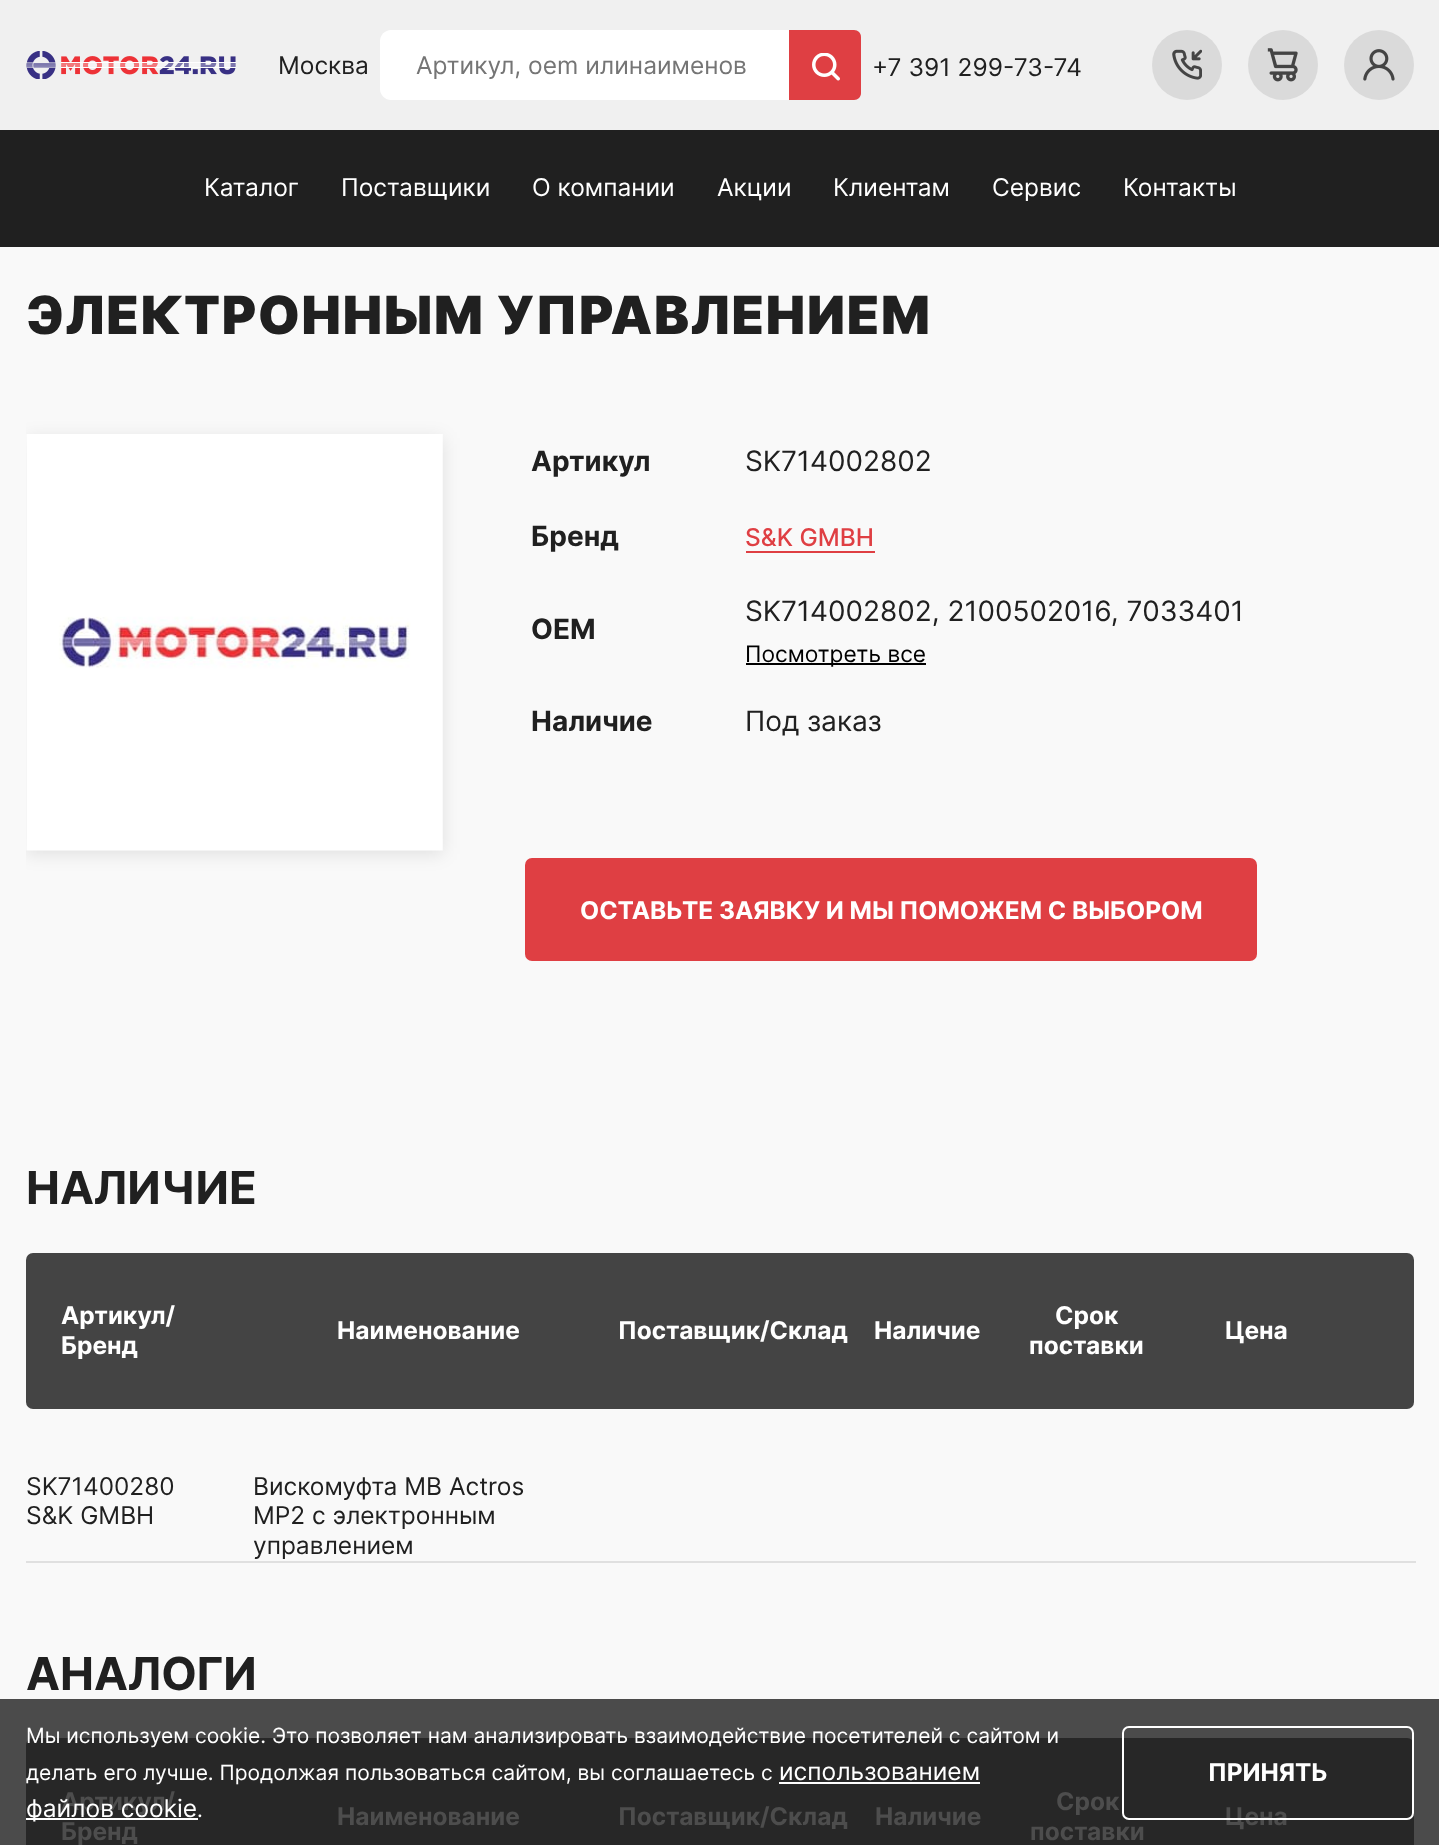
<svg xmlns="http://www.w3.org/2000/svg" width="1439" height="1845">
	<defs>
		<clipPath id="clip1"><rect x="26" y="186" width="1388" height="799" /></clipPath>
	</defs>
	<rect width="100%" height="100%" fill="#F9F9F9" />
	<rect x="0" y="1699" width="1439" height="146" fill="#4B4B4B" />
	<rect x="0" y="0" width="1439" height="130" fill="#F0F0F0" />
	<image x="26" y="51" width="210" height="28" href="assets/img1.png" />
	<text x="278" y="74" font-family="Inter" font-size="24.5" fill="#202020">Москва</text>
	<path d="M391 30H789V100H391C385 100 380 95 380 89V41C380 35 385 30 391 30Z" fill="#FFFFFF" />
	<text x="416" y="74" font-family="Inter" font-size="24.5" fill="#757575">Артикул, oem илинаименов</text>
	<path d="M789 30H854C858 30 861 33 861 37V93C861 97 858 100 854 100H789Z" fill="#DF3F43" />
	<image x="812" y="53" width="28" height="28" href="assets/img2.png" />
	<text x="872" y="76" font-family="Inter" font-size="24.5" fill="#202020">+7 391 299-73-74</text>
	<circle cx="1187" cy="65" r="35" fill="#DADADA" />
	<image x="1172" y="49" width="30" height="31" href="assets/img3.png" />
	<circle cx="1283" cy="65" r="35" fill="#DADADA" />
	<image x="1267" y="48" width="31" height="34" href="assets/img4.png" />
	<circle cx="1379" cy="65" r="35" fill="#DADADA" />
	<image x="1363" y="49" width="32" height="32" href="assets/img5.png" />
	<rect x="0" y="130" width="1439" height="117" fill="#202020" />
	<g font-family="Inter" font-size="24.5" fill="#FFFFFF">
		<text x="204" y="196">Каталог</text>
		<text x="341" y="196">Поставщики</text>
		<text x="532" y="196">О компании</text>
		<text x="717" y="196">Акции</text>
		<text x="833" y="196">Клиентам</text>
		<text x="992" y="196">Сервис</text>
		<text x="1123" y="196">Контакты</text>
	</g>
	<text x="26" y="334" font-family="Inter" font-size="52.5" font-weight="900" letter-spacing="1.75" fill="#202020">ЭЛЕКТРОННЫМ УПРАВЛЕНИЕМ</text>
	<g clip-path="url(#clip1)">
		<rect x="26" y="438" width="417" height="416" fill="#000000" fill-opacity="0.1" filter="blur(9px)" />
	</g>
	<image x="26" y="434" width="417" height="417" href="assets/img6.png" />
	<text x="531" y="471" font-family="Inter" font-size="28" font-weight="700" fill="#202020">Артикул</text>
	<text x="745" y="471" font-family="Inter" font-size="28" fill="#202020">SK714002802</text>
	<text x="531" y="546" font-family="Inter" font-size="28" font-weight="700" fill="#202020">Бренд</text>
	<text x="745" y="546" font-family="Inter" font-size="24.5" font-weight="500" fill="#DF3F43">S&amp;K GMBH</text>
	<rect x="746" y="551" width="129" height="2" fill="#DF3F43" />
	<text x="531" y="639" font-family="Inter" font-size="28" font-weight="700" fill="#202020">OEM</text>
	<text x="745" y="621" font-family="Inter" font-size="28" fill="#202020">SK714002802, 2100502016, 7033401</text>
	<rect x="746" y="663" width="180" height="2" fill="#000000" />
	<text x="745" y="662" font-family="Inter" font-size="22.75" fill="#000000">Посмотреть все</text>
	<text x="531" y="731" font-family="Inter" font-size="28" font-weight="700" fill="#202020">Наличие</text>
	<text x="745" y="731" font-family="Inter" font-size="28" fill="#202020">Под заказ</text>
	<rect x="525" y="858" width="732" height="103" rx="7" fill="#DF3F43" />
	<text x="580" y="919" font-family="Inter" font-size="24.5" font-weight="700" fill="#FFFFFF">ОСТАВЬТЕ ЗАЯВКУ И МЫ ПОМОЖЕМ С ВЫБОРОМ</text>
	<text x="26" y="1204" font-family="Inter" font-size="45.5" font-weight="700" fill="#202020">НАЛИЧИЕ</text>
	<rect x="26" y="1253" width="1388" height="156" rx="7" fill="#444444" />
	<g font-family="Inter" font-size="24.5" font-weight="700" fill="#FFFFFF">
		<text x="61" y="1324">Артикул/</text>
		<text x="61" y="1354">Бренд</text>
		<text x="337" y="1339">Наименование</text>
		<text x="618" y="1339">Поставщик/Склад</text>
		<text x="874" y="1339">Наличие</text>
		<text x="1055" y="1324">Срок</text>
		<text x="1029" y="1354">поставки</text>
		<text x="1225" y="1339">Цена</text>
	</g>
	<rect x="26" y="1561" width="1390" height="2" fill="#E0E0E0" />
	<g font-family="Inter" font-size="24.5" fill="#202020">
		<text x="26" y="1495">SK71400280</text>
		<text x="26" y="1524">S&amp;K GMBH</text>
		<text x="253" y="1495">Вискомуфта MB Actros</text>
		<text x="253" y="1524">MP2 с электронным</text>
		<text x="253" y="1554">управлением</text>
	</g>
	<text x="26" y="1690" font-family="Inter" font-size="45.5" font-weight="700" fill="#202020">АНАЛОГИ</text>
	<rect x="26" y="1738" width="1388" height="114" rx="7" fill="#272727" />
	<g font-family="Inter" font-size="24.5" font-weight="700" fill="#4D4D4D">
		<text x="61" y="1810">Артикул/</text>
		<text x="61" y="1840">Бренд</text>
		<text x="337" y="1825">Наименование</text>
		<text x="618" y="1825">Поставщик/Склад</text>
		<text x="875" y="1825">Наличие</text>
		<text x="1056" y="1810">Срок</text>
		<text x="1030" y="1840">поставки</text>
		<text x="1225" y="1825">Цена</text>
	</g>
	<g font-family="Inter" font-size="21" fill="#FFFFFF">
		<text x="26" y="1743">Мы используем cookie. Это позволяет нам анализировать взаимодействие посетителей с сайтом и</text>
		<text x="26" y="1780">делать его лучше. Продолжая пользоваться сайтом, вы соглашаетесь с</text>
	</g>
	<text x="779" y="1780" font-family="Inter" font-size="24.5" fill="#FFFFFF">использованием</text>
	<rect x="779" y="1782" width="201" height="2" fill="#FFFFFF" />
	<rect x="26" y="1818" width="172" height="2" fill="#FFFFFF" />
	<text x="26" y="1817" font-family="Inter" font-size="24.5" fill="#FFFFFF">файлов cookie</text>
	<text x="197" y="1817" font-family="Inter" font-size="21" fill="#FFFFFF">.</text>
	<rect x="1123" y="1727" width="290" height="92" rx="6" fill="none" stroke="#FFFFFF" stroke-width="2" />
	<text x="1208" y="1781" font-family="Inter" font-size="24.5" font-weight="700" fill="#FFFFFF">ПРИНЯТЬ</text>
</svg>
